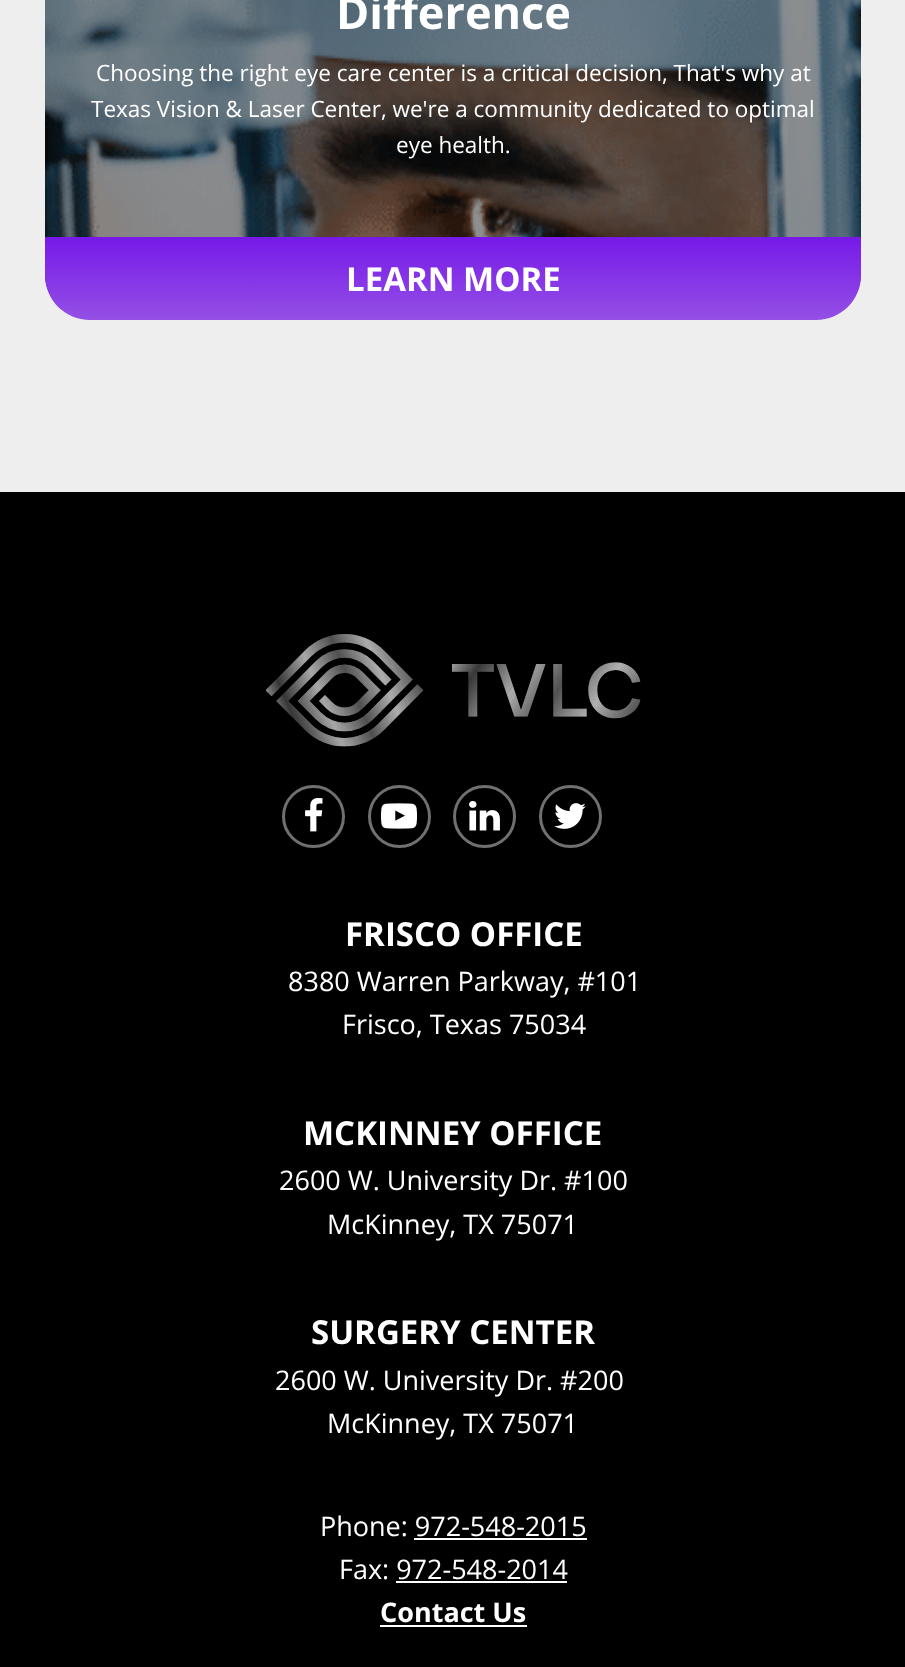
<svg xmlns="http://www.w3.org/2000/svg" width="905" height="1667">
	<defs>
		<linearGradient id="g1" gradientUnits="userSpaceOnUse" x1="453" y1="237" x2="453" y2="320"><stop offset="0" stop-color="#7619E8" /><stop offset="1" stop-color="#9450E5" /></linearGradient>
	</defs>
	<rect width="100%" height="100%" fill="#EEEEEE" />
	<image x="45" y="0" width="816" height="316" href="assets/img1.png" />
	<text x="336" y="29" font-family="Open Sans" font-size="45" font-weight="700" fill="#FFFFFF">Difference</text>
	<g font-family="Open Sans" font-size="22.5" fill="#FFFFFF">
		<text x="96" y="81">Choosing the right eye care center is a critical decision, That's why at</text>
		<text x="91" y="117">Texas Vision &amp; Laser Center, we're a community dedicated to optimal</text>
		<text x="396" y="153">eye health.</text>
	</g>
	<path d="M45 237H861V275C861 300 841 320 816 320H90C65 320 45 300 45 275Z" fill="url(#g1)" />
	<text x="346" y="291" font-family="Open Sans" font-size="33" font-weight="700" fill="#FFFFFF">LEARN MORE</text>
	<rect x="0" y="492" width="905" height="1175" fill="#000000" />
	<image x="266" y="634" width="375" height="113" href="assets/img2.png" />
	<circle cx="313.5" cy="816.5" r="30" fill="none" stroke="#707070" stroke-width="3" />
	<image x="305" y="798" width="18" height="34" href="assets/img3.png" />
	<circle cx="399.5" cy="816.5" r="30" fill="none" stroke="#707070" stroke-width="3" />
	<image x="381" y="803" width="36" height="26" href="assets/img4.png" />
	<circle cx="484.5" cy="816.5" r="30" fill="none" stroke="#707070" stroke-width="3" />
	<image x="469" y="801" width="31" height="30" href="assets/img5.png" />
	<circle cx="570.5" cy="816.5" r="30" fill="none" stroke="#707070" stroke-width="3" />
	<image x="554" y="803" width="32" height="26" href="assets/img6.png" />
	<text x="345" y="946" font-family="Open Sans" font-size="33" font-weight="700" fill="#FFFFFF">FRISCO OFFICE</text>
	<g font-family="Open Sans" font-size="27" fill="#FFFFFF">
		<text x="288" y="991">8380 Warren Parkway, #101</text>
		<text x="342" y="1034">Frisco, Texas 75034</text>
	</g>
	<text x="303" y="1145" font-family="Open Sans" font-size="33" font-weight="700" fill="#FFFFFF">MCKINNEY OFFICE</text>
	<g font-family="Open Sans" font-size="27" fill="#FFFFFF">
		<text x="279" y="1190">2600 W. University Dr. #100</text>
		<text x="327" y="1234">McKinney, TX 75071</text>
	</g>
	<text x="311" y="1344" font-family="Open Sans" font-size="33" font-weight="700" fill="#FFFFFF">SURGERY CENTER</text>
	<g font-family="Open Sans" font-size="27" fill="#FFFFFF">
		<text x="275" y="1390">2600 W. University Dr. #200</text>
		<text x="327" y="1433">McKinney, TX 75071</text>
		<text x="320" y="1536">Phone: 972-548-2015</text>
	</g>
	<rect x="414" y="1538" width="173" height="2" fill="#FFFFFF" />
	<text x="339" y="1579" font-family="Open Sans" font-size="27" fill="#FFFFFF">Fax: 972-548-2014</text>
	<rect x="396" y="1581" width="171" height="2" fill="#FFFFFF" />
	<text x="380" y="1622" font-family="Open Sans" font-size="27" font-weight="700" fill="#FFFFFF">Contact Us</text>
	<rect x="380" y="1625" width="147" height="2" fill="#FFFFFF" />
</svg>
